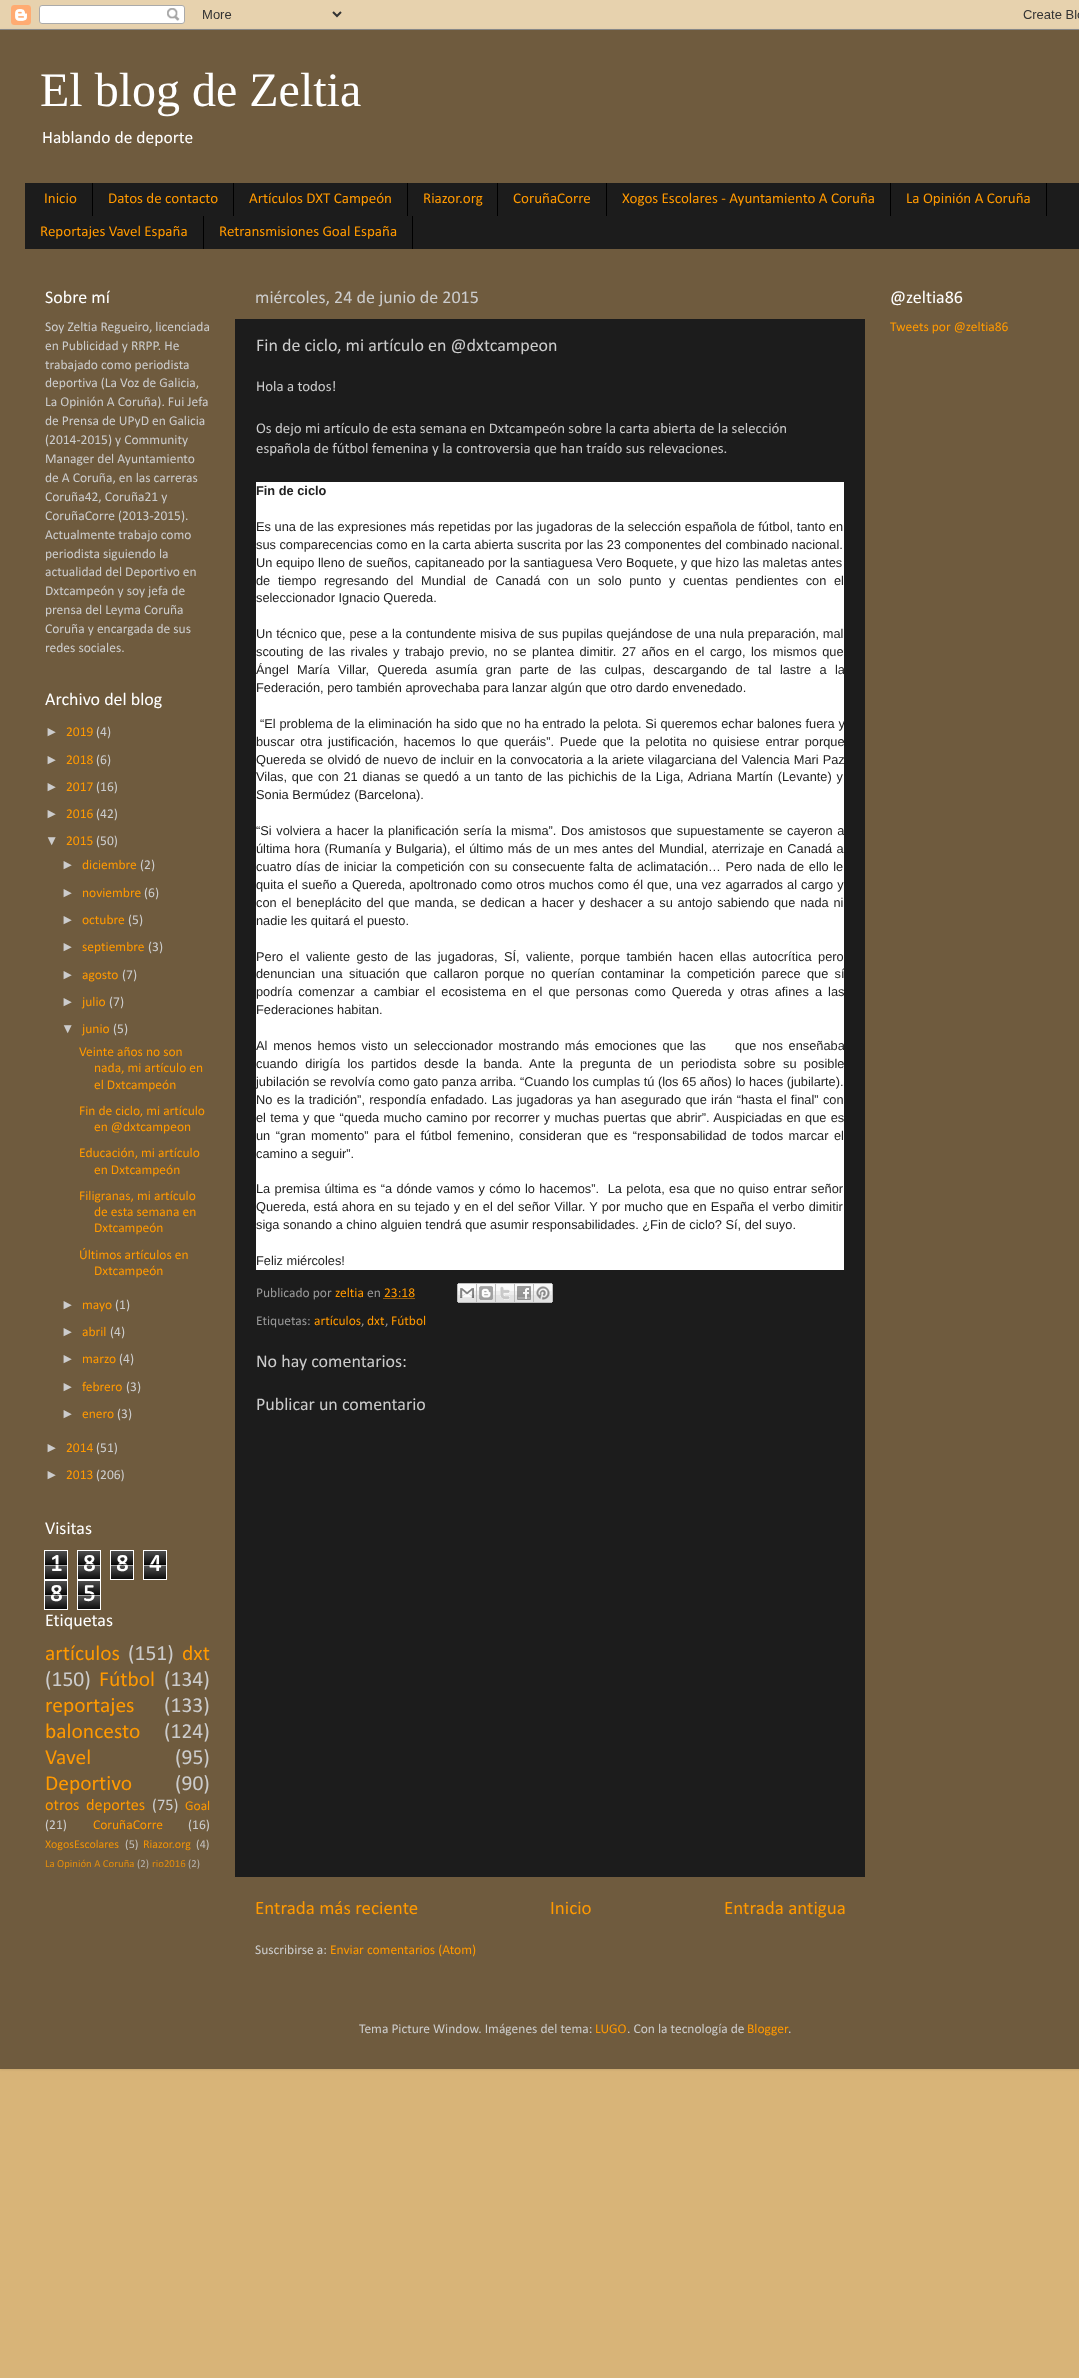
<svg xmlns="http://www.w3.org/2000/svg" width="1079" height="2378">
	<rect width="100%" height="100%" fill="#D8B478" />
	<rect x="0" y="30" width="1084" height="2039" fill="#000000" fill-opacity="0.15" filter="blur(1.5px)" />
	<image x="0" y="0" width="1079" height="30" href="assets/img1.png" />
	<rect x="0" y="30" width="1079" height="2039" fill="#6F5B3E" />
	<text x="40" y="106" font-family="Liberation Serif" font-size="48" fill="#FFFFFF">El blog de Zeltia</text>
	<text x="42" y="143" font-family="Calibri" font-size="17.5" fill="#FFFFFF">Hablando de deporte</text>
	<rect x="25" y="183" width="1054" height="66" fill="#1C1C1C" />
	<rect x="92" y="183" width="1" height="33" fill="#000000" />
	<text x="44" y="203" font-family="Calibri" font-size="15" fill="#FF9900">Inicio</text>
	<rect x="233" y="183" width="1" height="33" fill="#000000" />
	<text x="108" y="203" font-family="Calibri" font-size="15" fill="#FF9900">Datos de contacto</text>
	<rect x="407" y="183" width="1" height="33" fill="#000000" />
	<text x="249" y="203" font-family="Calibri" font-size="15" fill="#FF9900">Artículos DXT Campeón</text>
	<rect x="497" y="183" width="1" height="33" fill="#000000" />
	<text x="423" y="203" font-family="Calibri" font-size="15" fill="#FF9900">Riazor.org</text>
	<rect x="606" y="183" width="1" height="33" fill="#000000" />
	<text x="513" y="203" font-family="Calibri" font-size="15" fill="#FF9900">CoruñaCorre</text>
	<rect x="890" y="183" width="1" height="33" fill="#000000" />
	<text x="622" y="203" font-family="Calibri" font-size="15" fill="#FF9900">Xogos Escolares - Ayuntamiento A Coruña</text>
	<rect x="1046" y="183" width="1" height="33" fill="#000000" />
	<text x="906" y="203" font-family="Calibri" font-size="15" fill="#FF9900">La Opinión A Coruña</text>
	<rect x="203" y="216" width="1" height="33" fill="#000000" />
	<text x="40" y="236" font-family="Calibri" font-size="15" fill="#FF9900">Reportajes Vavel España</text>
	<rect x="412" y="216" width="1" height="33" fill="#000000" />
	<text x="219" y="236" font-family="Calibri" font-size="15" fill="#FF9900">Retransmisiones Goal España</text>
	<text x="45" y="303" font-family="Calibri" font-size="18" fill="#FFFFFF">Sobre mí</text>
	<g font-family="Calibri" font-size="13.5" fill="#CCCCCC">
		<text x="45" y="331">Soy Zeltia Regueiro, licenciada</text>
		<text x="45" y="350">en Publicidad y RRPP. He</text>
		<text x="45" y="369">trabajado como periodista</text>
		<text x="45" y="387">deportiva (La Voz de Galicia,</text>
		<text x="45" y="406">La Opinión A Coruña). Fui Jefa</text>
		<text x="45" y="425">de Prensa de UPyD en Galicia</text>
		<text x="45" y="444">(2014-2015) y Community</text>
		<text x="45" y="463">Manager del Ayuntamiento</text>
		<text x="45" y="482">de A Coruña, en las carreras</text>
		<text x="45" y="501">Coruña42, Coruña21 y</text>
		<text x="45" y="520">CoruñaCorre (2013-2015).</text>
		<text x="45" y="539">Actualmente trabajo como</text>
		<text x="45" y="558">periodista siguiendo la</text>
		<text x="45" y="576">actualidad del Deportivo en</text>
		<text x="45" y="595">Dxtcampeón y soy jefa de</text>
		<text x="45" y="614">prensa del Leyma Coruña</text>
		<text x="45" y="633">Coruña y encargada de sus</text>
		<text x="45" y="652">redes sociales.</text>
	</g>
	<text x="45" y="705" font-family="Calibri" font-size="18" fill="#FFFFFF">Archivo del blog</text>
	<text x="45" y="736" font-family="Liberation Sans" font-size="13.5" fill="#CCCCCC">►</text>
	<text x="66" y="736" font-family="Calibri" font-size="13.5" fill="#FF9900">2019</text>
	<text x="96" y="736" font-family="Calibri" font-size="13.5" fill="#CCCCCC">(4)</text>
	<text x="45" y="764" font-family="Liberation Sans" font-size="13.5" fill="#CCCCCC">►</text>
	<text x="66" y="764" font-family="Calibri" font-size="13.5" fill="#FF9900">2018</text>
	<text x="96" y="764" font-family="Calibri" font-size="13.5" fill="#CCCCCC">(6)</text>
	<text x="45" y="791" font-family="Liberation Sans" font-size="13.5" fill="#CCCCCC">►</text>
	<text x="66" y="791" font-family="Calibri" font-size="13.5" fill="#FF9900">2017</text>
	<text x="96" y="791" font-family="Calibri" font-size="13.5" fill="#CCCCCC">(16)</text>
	<text x="45" y="818" font-family="Liberation Sans" font-size="13.5" fill="#CCCCCC">►</text>
	<text x="66" y="818" font-family="Calibri" font-size="13.5" fill="#FF9900">2016</text>
	<text x="96" y="818" font-family="Calibri" font-size="13.5" fill="#CCCCCC">(42)</text>
	<text x="45" y="845" font-family="Liberation Sans" font-size="13.5" fill="#CCCCCC">▼</text>
	<text x="66" y="845" font-family="Calibri" font-size="13.5" fill="#FF9900">2015</text>
	<text x="96" y="845" font-family="Calibri" font-size="13.5" fill="#CCCCCC">(50)</text>
	<text x="61" y="869" font-family="Liberation Sans" font-size="13.5" fill="#CCCCCC">►</text>
	<text x="82" y="869" font-family="Calibri" font-size="13.5" fill="#FF9900">diciembre</text>
	<text x="140" y="869" font-family="Calibri" font-size="13.5" fill="#CCCCCC">(2)</text>
	<text x="61" y="897" font-family="Liberation Sans" font-size="13.5" fill="#CCCCCC">►</text>
	<text x="82" y="897" font-family="Calibri" font-size="13.5" fill="#FF9900">noviembre</text>
	<text x="144" y="897" font-family="Calibri" font-size="13.5" fill="#CCCCCC">(6)</text>
	<text x="61" y="924" font-family="Liberation Sans" font-size="13.5" fill="#CCCCCC">►</text>
	<text x="82" y="924" font-family="Calibri" font-size="13.5" fill="#FF9900">octubre</text>
	<text x="128" y="924" font-family="Calibri" font-size="13.5" fill="#CCCCCC">(5)</text>
	<text x="61" y="951" font-family="Liberation Sans" font-size="13.5" fill="#CCCCCC">►</text>
	<text x="82" y="951" font-family="Calibri" font-size="13.5" fill="#FF9900">septiembre</text>
	<text x="148" y="951" font-family="Calibri" font-size="13.5" fill="#CCCCCC">(3)</text>
	<text x="61" y="979" font-family="Liberation Sans" font-size="13.5" fill="#CCCCCC">►</text>
	<text x="82" y="979" font-family="Calibri" font-size="13.5" fill="#FF9900">agosto</text>
	<text x="122" y="979" font-family="Calibri" font-size="13.5" fill="#CCCCCC">(7)</text>
	<text x="61" y="1006" font-family="Liberation Sans" font-size="13.5" fill="#CCCCCC">►</text>
	<text x="82" y="1006" font-family="Calibri" font-size="13.5" fill="#FF9900">julio</text>
	<text x="109" y="1006" font-family="Calibri" font-size="13.5" fill="#CCCCCC">(7)</text>
	<text x="61" y="1033" font-family="Liberation Sans" font-size="13.5" fill="#CCCCCC">▼</text>
	<text x="82" y="1033" font-family="Calibri" font-size="13.5" fill="#FF9900">junio</text>
	<text x="113" y="1033" font-family="Calibri" font-size="13.5" fill="#CCCCCC">(5)</text>
	<g font-family="Calibri" font-size="13.5" fill="#FF9900">
		<text x="79" y="1056">Veinte años no son</text>
		<text x="94" y="1072">nada, mi artículo en</text>
		<text x="94" y="1089">el Dxtcampeón</text>
		<text x="79" y="1115">Fin de ciclo, mi artículo</text>
		<text x="94" y="1131">en @dxtcampeon</text>
		<text x="79" y="1157">Educación, mi artículo</text>
		<text x="94" y="1174">en Dxtcampeón</text>
		<text x="79" y="1200">Filigranas, mi artículo</text>
		<text x="94" y="1216">de esta semana en</text>
		<text x="94" y="1232">Dxtcampeón</text>
		<text x="79" y="1259">Últimos artículos en</text>
		<text x="94" y="1275">Dxtcampeón</text>
	</g>
	<text x="61" y="1309" font-family="Liberation Sans" font-size="13.5" fill="#CCCCCC">►</text>
	<text x="82" y="1309" font-family="Calibri" font-size="13.5" fill="#FF9900">mayo</text>
	<text x="115" y="1309" font-family="Calibri" font-size="13.5" fill="#CCCCCC">(1)</text>
	<text x="61" y="1336" font-family="Liberation Sans" font-size="13.5" fill="#CCCCCC">►</text>
	<text x="82" y="1336" font-family="Calibri" font-size="13.5" fill="#FF9900">abril</text>
	<text x="110" y="1336" font-family="Calibri" font-size="13.5" fill="#CCCCCC">(4)</text>
	<text x="61" y="1363" font-family="Liberation Sans" font-size="13.5" fill="#CCCCCC">►</text>
	<text x="82" y="1363" font-family="Calibri" font-size="13.5" fill="#FF9900">marzo</text>
	<text x="119" y="1363" font-family="Calibri" font-size="13.5" fill="#CCCCCC">(4)</text>
	<text x="61" y="1391" font-family="Liberation Sans" font-size="13.5" fill="#CCCCCC">►</text>
	<text x="82" y="1391" font-family="Calibri" font-size="13.5" fill="#FF9900">febrero</text>
	<text x="126" y="1391" font-family="Calibri" font-size="13.5" fill="#CCCCCC">(3)</text>
	<text x="61" y="1418" font-family="Liberation Sans" font-size="13.5" fill="#CCCCCC">►</text>
	<text x="82" y="1418" font-family="Calibri" font-size="13.5" fill="#FF9900">enero</text>
	<text x="117" y="1418" font-family="Calibri" font-size="13.5" fill="#CCCCCC">(3)</text>
	<text x="45" y="1452" font-family="Liberation Sans" font-size="13.5" fill="#CCCCCC">►</text>
	<text x="66" y="1452" font-family="Calibri" font-size="13.5" fill="#FF9900">2014</text>
	<text x="96" y="1452" font-family="Calibri" font-size="13.5" fill="#CCCCCC">(51)</text>
	<text x="45" y="1479" font-family="Liberation Sans" font-size="13.5" fill="#CCCCCC">►</text>
	<text x="66" y="1479" font-family="Calibri" font-size="13.5" fill="#FF9900">2013</text>
	<text x="96" y="1479" font-family="Calibri" font-size="13.5" fill="#CCCCCC">(206)</text>
	<text x="45" y="1534" font-family="Calibri" font-size="18" fill="#FFFFFF">Visitas</text>
	<image x="45" y="1551" width="22" height="28" href="assets/img2.png" />
	<rect x="44.5" y="1550.5" width="23" height="29" fill="none" stroke="#FFFFFF" />
	<text x="50" y="1571" font-family="Calibri" font-size="24" font-weight="700" fill="#FFFFFF">1</text>
	<rect x="45" y="1564" width="22" height="1" fill="#000000" fill-opacity="0.65" />
	<rect x="45" y="1565" width="22" height="1" fill="#FFFFFF" fill-opacity="0.65" />
	<image x="78" y="1551" width="22" height="28" href="assets/img2.png" />
	<rect x="77.5" y="1550.5" width="23" height="29" fill="none" stroke="#FFFFFF" />
	<text x="83" y="1571" font-family="Calibri" font-size="24" font-weight="700" fill="#FFFFFF">8</text>
	<rect x="78" y="1564" width="22" height="1" fill="#000000" fill-opacity="0.65" />
	<rect x="78" y="1565" width="22" height="1" fill="#FFFFFF" fill-opacity="0.65" />
	<image x="111" y="1551" width="22" height="28" href="assets/img2.png" />
	<rect x="110.5" y="1550.5" width="23" height="29" fill="none" stroke="#FFFFFF" />
	<text x="116" y="1571" font-family="Calibri" font-size="24" font-weight="700" fill="#FFFFFF">8</text>
	<rect x="111" y="1564" width="22" height="1" fill="#000000" fill-opacity="0.65" />
	<rect x="111" y="1565" width="22" height="1" fill="#FFFFFF" fill-opacity="0.65" />
	<image x="144" y="1551" width="22" height="28" href="assets/img2.png" />
	<rect x="143.5" y="1550.5" width="23" height="29" fill="none" stroke="#FFFFFF" />
	<text x="149" y="1571" font-family="Calibri" font-size="24" font-weight="700" fill="#FFFFFF">4</text>
	<rect x="144" y="1564" width="22" height="1" fill="#000000" fill-opacity="0.65" />
	<rect x="144" y="1565" width="22" height="1" fill="#FFFFFF" fill-opacity="0.65" />
	<image x="45" y="1581" width="22" height="28" href="assets/img2.png" />
	<rect x="44.5" y="1580.5" width="23" height="29" fill="none" stroke="#FFFFFF" />
	<text x="50" y="1601" font-family="Calibri" font-size="24" font-weight="700" fill="#FFFFFF">8</text>
	<rect x="45" y="1594" width="22" height="1" fill="#000000" fill-opacity="0.65" />
	<rect x="45" y="1595" width="22" height="1" fill="#FFFFFF" fill-opacity="0.65" />
	<image x="78" y="1581" width="22" height="28" href="assets/img2.png" />
	<rect x="77.5" y="1580.5" width="23" height="29" fill="none" stroke="#FFFFFF" />
	<text x="83" y="1601" font-family="Calibri" font-size="24" font-weight="700" fill="#FFFFFF">5</text>
	<rect x="78" y="1594" width="22" height="1" fill="#000000" fill-opacity="0.65" />
	<rect x="78" y="1595" width="22" height="1" fill="#FFFFFF" fill-opacity="0.65" />
	<text x="45" y="1626" font-family="Calibri" font-size="18" fill="#FFFFFF">Etiquetas</text>
	<text x="45" y="1660" font-family="Calibri" font-size="21.5" fill="#FF9900">artículos</text>
	<text x="128" y="1660" font-family="Calibri" font-size="21.5" fill="#CCCCCC">(151)</text>
	<text x="182" y="1660" font-family="Calibri" font-size="21.5" fill="#FF9900">dxt</text>
	<text x="45" y="1686" font-family="Calibri" font-size="21.5" fill="#CCCCCC">(150)</text>
	<text x="99" y="1686" font-family="Calibri" font-size="21.5" fill="#FF9900">Fútbol</text>
	<text x="164" y="1686" font-family="Calibri" font-size="21.5" fill="#CCCCCC">(134)</text>
	<text x="45" y="1712" font-family="Calibri" font-size="21.5" fill="#FF9900">reportajes</text>
	<text x="164" y="1712" font-family="Calibri" font-size="21.5" fill="#CCCCCC">(133)</text>
	<text x="45" y="1738" font-family="Calibri" font-size="21.5" fill="#FF9900">baloncesto</text>
	<text x="164" y="1738" font-family="Calibri" font-size="21.5" fill="#CCCCCC">(124)</text>
	<text x="45" y="1764" font-family="Calibri" font-size="21.5" fill="#FF9900">Vavel</text>
	<text x="175" y="1764" font-family="Calibri" font-size="21.5" fill="#CCCCCC">(95)</text>
	<text x="45" y="1790" font-family="Calibri" font-size="21.5" fill="#FF9900">Deportivo</text>
	<text x="175" y="1790" font-family="Calibri" font-size="21.5" fill="#CCCCCC">(90)</text>
	<text x="45" y="1810" word-spacing="3" font-family="Calibri" font-size="16.25" fill="#FF9900">otros deportes</text>
	<text x="152" y="1810" font-family="Calibri" font-size="16.25" fill="#CCCCCC">(75)</text>
	<text x="185" y="1810" font-family="Calibri" font-size="13.5" fill="#FF9900">Goal</text>
	<text x="45" y="1829" font-family="Calibri" font-size="13.5" fill="#CCCCCC">(21)</text>
	<text x="93" y="1829" font-family="Calibri" font-size="13.5" fill="#FF9900">CoruñaCorre</text>
	<text x="188" y="1829" font-family="Calibri" font-size="13.5" fill="#CCCCCC">(16)</text>
	<text x="45" y="1848" font-family="Calibri" font-size="12" fill="#F19306">XogosEscolares</text>
	<text x="125" y="1848" font-family="Calibri" font-size="12" fill="#C3C1BE">(5)</text>
	<text x="143" y="1848" font-family="Calibri" font-size="12" fill="#F19306">Riazor.org</text>
	<text x="196" y="1848" font-family="Calibri" font-size="12" fill="#C3C1BE">(4)</text>
	<text x="45" y="1867" font-family="Calibri" font-size="10.75" fill="#E28D0C">La Opinión A Coruña</text>
	<text x="137" y="1867" font-family="Calibri" font-size="10.75" fill="#B9B5B0">(2)</text>
	<text x="152" y="1867" font-family="Calibri" font-size="10.75" fill="#E28D0C">rio2016</text>
	<text x="188" y="1867" font-family="Calibri" font-size="10.75" fill="#B9B5B0">(2)</text>
	<text x="255" y="303" font-family="Calibri" font-size="18" fill="#CCCCCC">miércoles, 24 de junio de 2015</text>
	<rect x="235" y="319" width="630" height="1558" fill="#1C1C1C" />
	<text x="256" y="351" font-family="Calibri" font-size="18" fill="#CCCCCC">Fin de ciclo, mi artículo en @dxtcampeon</text>
	<g font-family="Calibri" font-size="14.85" fill="#CCCCCC">
		<text x="256" y="391">Hola a todos!</text>
		<text x="256" y="433">Os dejo mi artículo de esta semana en Dxtcampeón sobre la carta abierta de la selección</text>
		<text x="256" y="453">española de fútbol femenina y la controversia que han traído sus relevaciones.</text>
	</g>
	<rect x="256" y="482" width="588" height="788" fill="#FFFFFF" />
	<text x="256" y="495" font-family="Liberation Sans" font-size="12.8" font-weight="700" fill="#222222">Fin de ciclo</text>
	<g font-family="Liberation Sans" font-size="12.8" fill="#222222">
		<text x="256" y="531" word-spacing="0.1">Es una de las expresiones más repetidas por las jugadoras de la selección española de fútbol, tanto en</text>
		<text x="256" y="549">sus comparecencias como en la carta abierta suscrita por las 23 componentes del combinado nacional.</text>
		<text x="256" y="567">Un equipo lleno de sueños, capitaneado por la santiaguesa Vero Boquete, y que hizo las maletas antes</text>
		<text x="256" y="585" word-spacing="4.1">de tiempo regresando del Mundial de Canadá con un solo punto y cuentas pendientes con el</text>
		<text x="256" y="602">seleccionador Ignacio Quereda.</text>
		<text x="256" y="638" word-spacing="0.3">Un técnico que, pese a la contundente misiva de sus pupilas quejándose de una nula preparación, mal</text>
		<text x="256" y="656" word-spacing="1.9">scouting de las rivales y trabajo previo, no se plantea dimitir. 27 años en el cargo, los mismos que</text>
		<text x="256" y="674" word-spacing="4.75">Ángel María Villar, Quereda asumía gran parte de las culpas, descargando de tal lastre a la</text>
		<text x="256" y="692">Federación, pero también aprovechaba para lanzar algún que otro dardo envenedado.</text>
		<text x="260" y="728" word-spacing="0.2">“El problema de la eliminación ha sido que no ha entrado la pelota. Si queremos echar balones fuera y</text>
		<text x="256" y="746" word-spacing="2.25">buscar otra justificación, hacemos lo que queráis”. Puede que la pelotita no quisiese entrar porque</text>
		<text x="256" y="764" word-spacing="0.5">Quereda se olvidó de nuevo de incluir en la convocatoria a la ariete vilagarciana del Valencia Mari Paz</text>
		<text x="256" y="781" word-spacing="1.25">Vilas, que con 21 dianas se quedó a un tanto de las pichichis de la Liga, Adriana Martín (Levante) y</text>
		<text x="256" y="799">Sonia Bermúdez (Barcelona).</text>
		<text x="256" y="835" word-spacing="1.1">“Si volviera a hacer la planificación sería la misma”. Dos amistosos que supuestamente se cayeron a</text>
		<text x="256" y="853" word-spacing="0.8">última hora (Rumanía y Bulgaria), el último más de un mes antes del Mundial, aterrizaje en Canadá a</text>
		<text x="256" y="871" word-spacing="1">cuatro días de iniciar la competición con su consecuente falta de aclimatación… Pero nada de ello le</text>
		<text x="256" y="889" word-spacing="0.5">quita el sueño a Quereda, apoltronado como otros muchos como él que, una vez agarrados al cargo y</text>
		<text x="256" y="907" word-spacing="1.25">con el beneplácito del que manda, se dedican a hacer y deshacer a su antojo sabiendo que nada ni</text>
		<text x="256" y="925">nadie les quitará el puesto.</text>
		<text x="256" y="961" word-spacing="2.9">Pero el valiente gesto de las jugadoras, SÍ, valiente, porque también hacen ellas autocrítica pero</text>
		<text x="256" y="978" word-spacing="2.75">denuncian una situación que callaron porque no querían contaminar la competición parece que sí</text>
		<text x="256" y="996" word-spacing="2.5">podría comenzar a cambiar el ecosistema en el que personas como Quereda y otras afines a las</text>
		<text x="256" y="1014">Federaciones habitan.</text>
		<text x="256" y="1050" word-spacing="2.25" xml:space="preserve">Al menos hemos visto un seleccionador mostrando más emociones que las     que nos enseñaba</text>
		<text x="256" y="1068" word-spacing="3.75">cuando dirigía los partidos desde la banda. Ante la pregunta de un periodista sobre su posible</text>
		<text x="256" y="1086">jubilación se revolvía como gato panza arriba. “Cuando los cumplas tú (los 65 años) lo haces (jubilarte).</text>
		<text x="256" y="1104" word-spacing="0.75">No es la tradición”, respondía enfadado. Las jugadoras ya han asegurado que irán “hasta el final” con</text>
		<text x="256" y="1122" word-spacing="0.75">el tema y que “queda mucho camino por recorrer y muchas puertas que abrir”. Auspiciadas en que es</text>
		<text x="256" y="1140" word-spacing="1.9">un “gran momento” para el fútbol femenino, consideran que es “responsabilidad de todos marcar el</text>
		<text x="256" y="1158">camino a seguir”.</text>
		<text x="256" y="1193" word-spacing="0.8" xml:space="preserve">La premisa última es “a dónde vamos y cómo lo hacemos”.  La pelota, esa que no quiso entrar señor</text>
		<text x="256" y="1211" word-spacing="0.6">Quereda, está ahora en su tejado y en el del señor Villar. Y por mucho que en España el verbo dimitir</text>
		<text x="256" y="1229">siga sonando a chino alguien tendrá que asumir responsabilidades. ¿Fin de ciclo? Sí, del suyo.</text>
		<text x="256" y="1265">Feliz miércoles!</text>
	</g>
	<text x="256" y="1297" font-family="Calibri" font-size="13.5" fill="#999999">Publicado por</text>
	<text x="335" y="1297" font-family="Calibri" font-size="13.5" fill="#FF9900">zeltia</text>
	<text x="367" y="1297" font-family="Calibri" font-size="13.5" fill="#999999">en</text>
	<text x="384" y="1297" font-family="Calibri" font-size="13.5" fill="#FF9900">23:18</text>
	<path d="M383.5 1298.5H414.5" fill="none" stroke="#FF9900" stroke-dasharray="1 1" />
	<image x="457" y="1283" width="20" height="20" href="assets/img3.png" />
	<image x="477" y="1283" width="19" height="20" href="assets/img4.png" />
	<image x="496" y="1283" width="19" height="20" href="assets/img5.png" />
	<image x="515" y="1283" width="19" height="20" href="assets/img6.png" />
	<image x="534" y="1283" width="19" height="20" href="assets/img7.png" />
	<text x="256" y="1325" font-family="Calibri" font-size="13.5" fill="#999999">Etiquetas:</text>
	<text x="314" y="1325" font-family="Calibri" font-size="13.5" fill="#FF9900">artículos</text>
	<text x="361" y="1325" font-family="Calibri" font-size="13.5" fill="#999999">,</text>
	<text x="367" y="1325" font-family="Calibri" font-size="13.5" fill="#FF9900">dxt</text>
	<text x="385" y="1325" font-family="Calibri" font-size="13.5" fill="#999999">,</text>
	<text x="391" y="1325" font-family="Calibri" font-size="13.5" fill="#FF9900">Fútbol</text>
	<g font-family="Calibri" font-size="18" fill="#CCCCCC">
		<text x="256" y="1367">No hay comentarios:</text>
		<text x="256" y="1410">Publicar un comentario</text>
	</g>
	<g font-family="Calibri" font-size="19" fill="#FF9900">
		<text x="255" y="1914">Entrada más reciente</text>
		<text x="550" y="1914">Inicio</text>
		<text x="724" y="1914">Entrada antigua</text>
	</g>
	<text x="255" y="1954" font-family="Calibri" font-size="13.5" fill="#CCCCCC">Suscribirse a:</text>
	<text x="330" y="1954" font-family="Calibri" font-size="13.5" fill="#FF9900">Enviar comentarios (Atom)</text>
	<text x="890" y="303" font-family="Calibri" font-size="18" fill="#FFFFFF">@zeltia86</text>
	<text x="890" y="331" font-family="Calibri" font-size="13.5" fill="#FF9900">Tweets por @zeltia86</text>
	<text x="359" y="2033" font-family="Calibri" font-size="13.5" fill="#CCCCCC">Tema Picture Window. Imágenes del tema:</text>
	<text x="595" y="2033" font-family="Calibri" font-size="13.5" fill="#FF9900">LUGO</text>
	<text x="627" y="2033" font-family="Calibri" font-size="13.5" fill="#CCCCCC">. Con la tecnología de</text>
	<text x="747" y="2033" font-family="Calibri" font-size="13.5" fill="#FF9900">Blogger</text>
	<text x="788" y="2033" font-family="Calibri" font-size="13.5" fill="#CCCCCC">.</text>
</svg>
